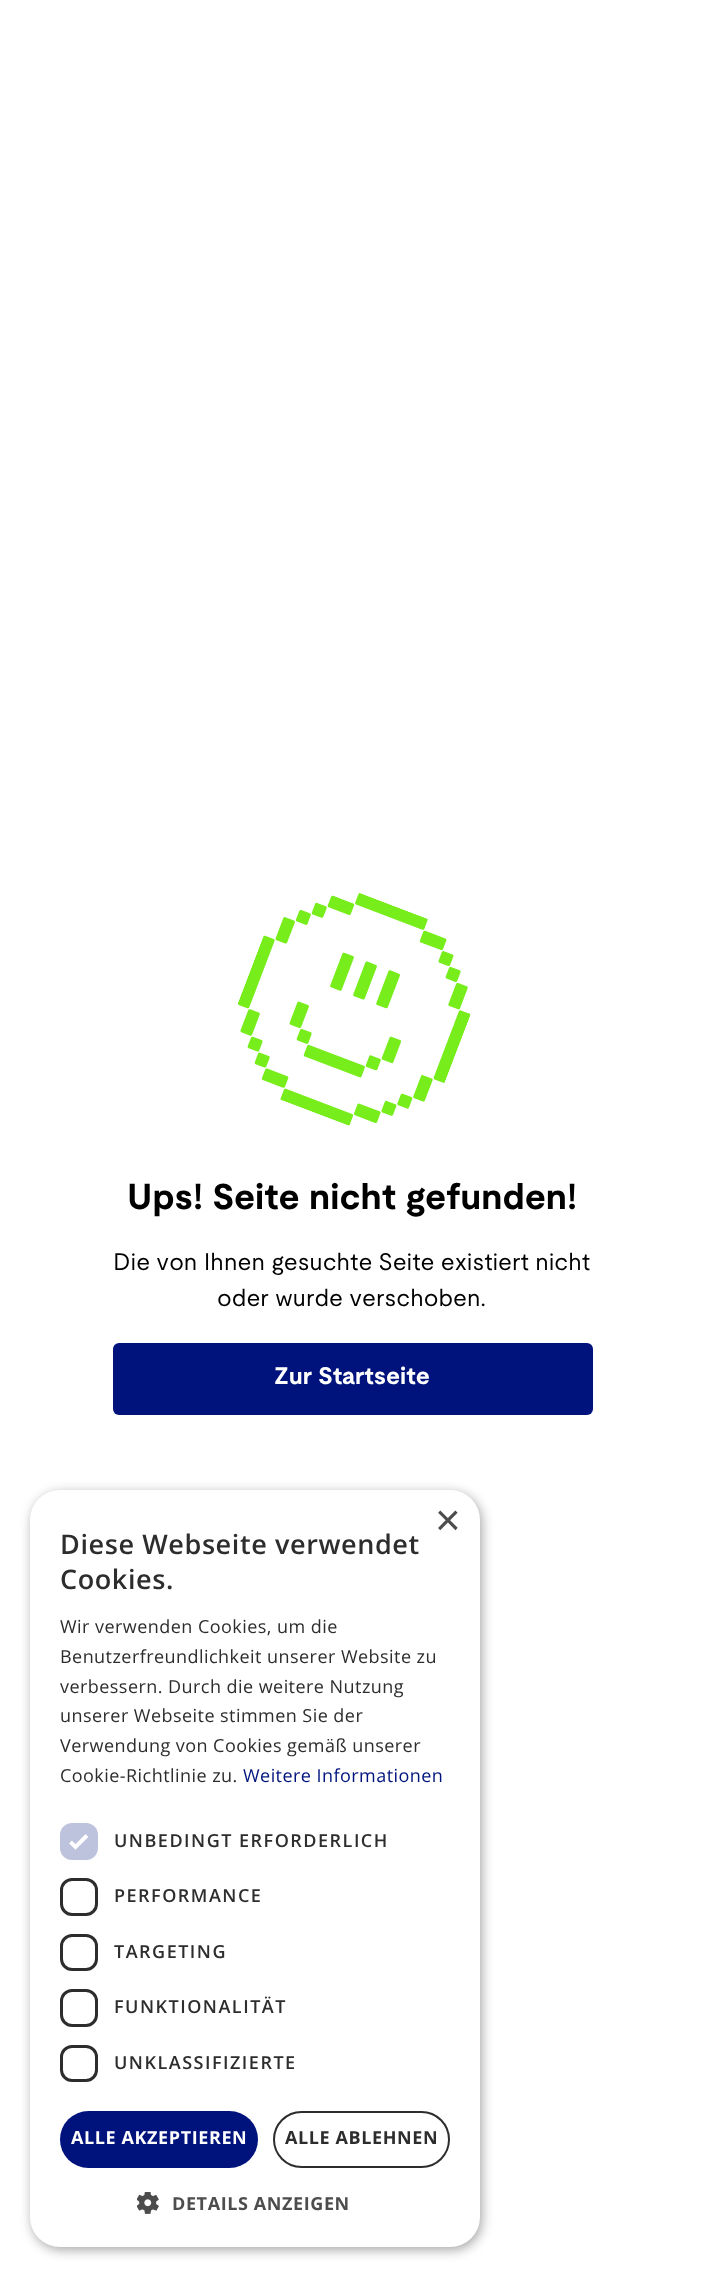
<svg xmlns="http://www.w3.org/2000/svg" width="703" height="2276">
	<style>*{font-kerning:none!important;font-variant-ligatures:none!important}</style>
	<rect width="100%" height="100%" fill="#FFFFFF" />
	<image x="238" y="893" width="233" height="233" href="assets/img1.png" />
	<text x="127" y="1209" font-family="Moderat" font-size="36" font-weight="700" fill="#000000">Ups! Seite nicht gefunden!</text>
	<g font-family="Moderat" font-size="24" fill="#000000">
		<text x="113" y="1270">Die von Ihnen gesuchte Seite existiert nicht</text>
		<text x="217" y="1306">oder wurde verschoben.</text>
	</g>
	<rect x="113" y="1343" width="480" height="72" rx="6" fill="#00137D" />
	<text x="274" y="1384" font-family="Moderat" font-size="24" font-weight="700" fill="#FFFFFF">Zur Startseite</text>
	<rect x="32" y="1493" width="450" height="757" rx="30" fill="#000000" fill-opacity="0.35" filter="blur(6px)" />
	<rect x="30" y="1490" width="450" height="757" rx="30" fill="#FFFFFF" />
	<text x="435" y="1535" font-family="Liberation Sans" font-size="44" fill="#4D4D4D">×</text>
	<g font-family="Open Sans" font-size="27" font-weight="600" letter-spacing="0.6" fill="#2D2D2D">
		<text x="60" y="1554">Diese Webseite verwendet</text>
		<text x="60" y="1589">Cookies.</text>
	</g>
	<g font-family="Open Sans" font-size="18" letter-spacing="0.45" fill="#2D2D2D">
		<text x="60" y="1633">Wir verwenden Cookies, um die</text>
		<text x="60" y="1663">Benutzerfreundlichkeit unserer Website zu</text>
		<text x="60" y="1693">verbessern. Durch die weitere Nutzung</text>
		<text x="60" y="1722">unserer Webseite stimmen Sie der</text>
		<text x="60" y="1752">Verwendung von Cookies gemäß unserer</text>
		<text x="60" y="1782">Cookie-Richtlinie zu.</text>
	</g>
	<text x="243" y="1782" font-family="Open Sans" font-size="18" letter-spacing="0.45" fill="#00137D">Weitere Informationen</text>
	<rect x="60" y="1823" width="38" height="37" rx="12" fill="#BDC2DD" />
	<path d="M70.5 1842L75.5 1847L87 1835.5" fill="none" stroke="#FFFFFF" stroke-width="3.9" />
	<text x="114" y="1847" font-family="Open Sans" font-size="18" font-weight="600" letter-spacing="1.5" fill="#2D2D2D">UNBEDINGT ERFORDERLICH</text>
	<rect x="61.5" y="1879.5" width="35" height="35" rx="10.5" fill="none" stroke="#2D2D2D" stroke-width="3" />
	<text x="114" y="1902" font-family="Open Sans" font-size="18" font-weight="600" letter-spacing="1.5" fill="#2D2D2D">PERFORMANCE</text>
	<rect x="61.5" y="1935.5" width="35" height="34" rx="10.5" fill="none" stroke="#2D2D2D" stroke-width="3" />
	<text x="114" y="1958" font-family="Open Sans" font-size="18" font-weight="600" letter-spacing="1.5" fill="#2D2D2D">TARGETING</text>
	<rect x="61.5" y="1990.5" width="35" height="35" rx="10.5" fill="none" stroke="#2D2D2D" stroke-width="3" />
	<text x="114" y="2013" font-family="Open Sans" font-size="18" font-weight="600" letter-spacing="1.5" fill="#2D2D2D">FUNKTIONALITÄT</text>
	<rect x="61.5" y="2046.5" width="35" height="34" rx="10.5" fill="none" stroke="#2D2D2D" stroke-width="3" />
	<text x="114" y="2069" font-family="Open Sans" font-size="18" font-weight="600" letter-spacing="1.5" fill="#2D2D2D">UNKLASSIFIZIERTE</text>
	<rect x="60" y="2111" width="198" height="57" rx="28.5" fill="#00137D" />
	<text x="71" y="2144" font-family="Open Sans" font-size="18" font-weight="700" letter-spacing="0.6" fill="#FFFFFF">ALLE AKZEPTIEREN</text>
	<rect x="274" y="2112" width="175" height="55" rx="27.5" fill="none" stroke="#2D2D2D" stroke-width="2" />
	<text x="285" y="2144" font-family="Open Sans" font-size="18" font-weight="700" letter-spacing="0.6" fill="#2D2D2D">ALLE ABLEHNEN</text>
	<image x="137" y="2192" width="22" height="22" href="assets/img2.png" />
	<text x="172" y="2210" font-family="Open Sans" font-size="18" font-weight="700" letter-spacing="0.6" fill="#4D4D4D">DETAILS ANZEIGEN</text>
</svg>
